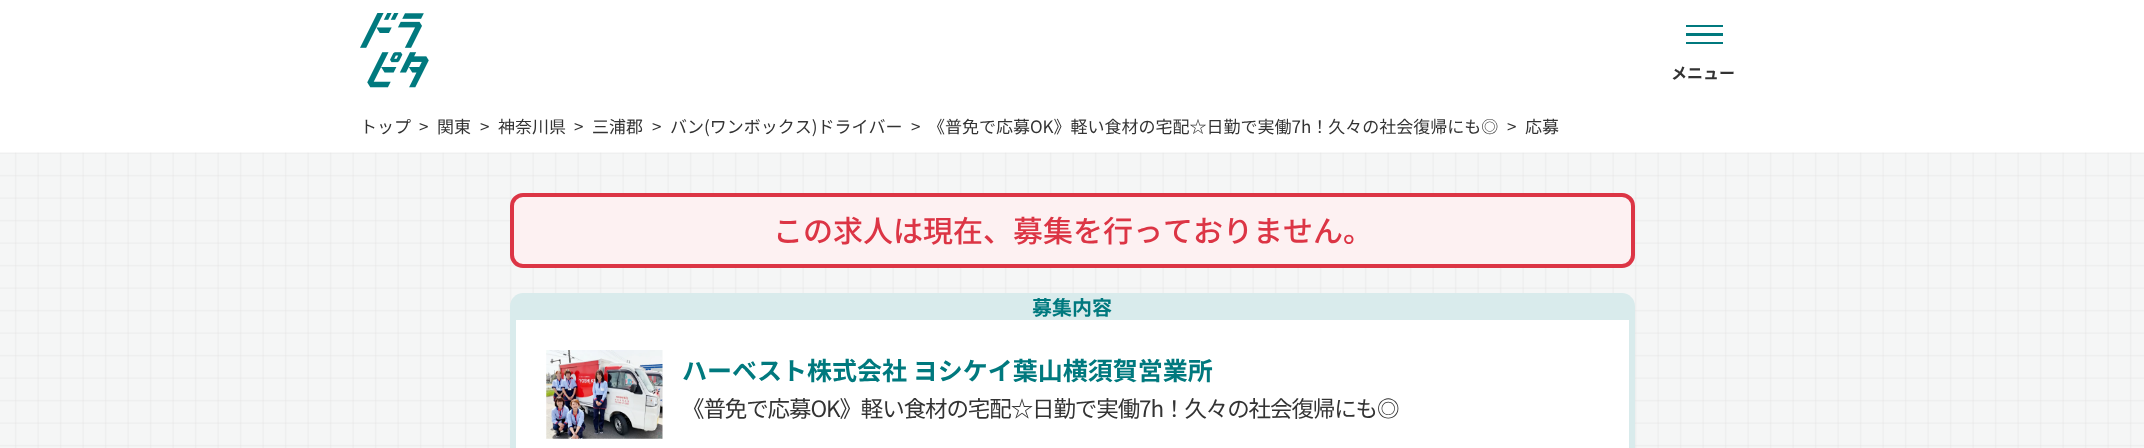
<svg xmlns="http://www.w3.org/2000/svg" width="2144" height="448">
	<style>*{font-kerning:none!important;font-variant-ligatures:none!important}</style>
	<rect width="100%" height="100%" fill="#FFFFFF" />
	<image x="360" y="13" width="69" height="75" href="assets/img1.png" />
	<rect x="1686" y="25" width="37" height="2" fill="#00797E" />
	<rect x="1686" y="33" width="37" height="3" fill="#00797E" />
	<rect x="1686" y="42" width="37" height="2" fill="#00797E" />
	<text x="1671" y="79" font-family="Noto Sans JP" font-size="16" font-weight="700" fill="#333333">メニュー</text>
	<g font-family="Noto Sans JP" font-size="17" fill="#333333">
		<text x="360" y="133">トップ</text>
		<text x="419" y="133">&gt;</text>
		<text x="437" y="133">関東</text>
		<text x="480" y="133">&gt;</text>
		<text x="498" y="133">神奈川県</text>
		<text x="574" y="133">&gt;</text>
		<text x="592" y="133">三浦郡</text>
		<text x="652" y="133">&gt;</text>
		<text x="670" y="133">バン(ワンボックス)ドライバー</text>
		<text x="911" y="133">&gt;</text>
		<text x="928" y="133">《普免で応募OK》軽い食材の宅配☆日勤で実働7h！久々の社会復帰にも◎</text>
		<text x="1507" y="133">&gt;</text>
		<text x="1525" y="133">応募</text>
	</g>
	<image x="0" y="152" width="2144" height="296" href="assets/img2.png" />
	<rect x="512" y="195" width="1121" height="71" rx="11" fill="#FDF1F2" stroke="#DC3545" stroke-width="4" />
	<text x="773" y="242" font-family="Noto Sans JP" font-size="30" font-weight="500" fill="#DC3545">この求人は現在、募集を行っておりません。</text>
	<path d="M523 293H1622C1629 293 1635 299 1635 306V320H510V306C510 299 516 293 523 293Z" fill="#D9EBEC" />
	<text x="1032" y="315" font-family="Noto Sans JP" font-size="20" font-weight="700" fill="#00797E">募集内容</text>
	<rect x="516" y="320" width="1113" height="128" fill="#FFFFFF" />
	<path d="M510 320H1635V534C1635 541 1629 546 1622 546H522C516 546 510 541 510 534ZM516 320H1629V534C1629 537 1626 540 1622 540H522C519 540 516 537 516 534Z" fill="#D9EBEC" fill-rule="evenodd" />
	<image x="546" y="350" width="117" height="89" href="assets/img3.png" />
	<text x="682" y="380" font-family="Noto Sans JP" font-size="25" font-weight="700" fill="#00797E">ハーベスト株式会社 ヨシケイ葉山横須賀営業所</text>
	<text x="682" y="417" font-family="Noto Sans JP" font-size="22.5" letter-spacing="-1.1" fill="#333333">《普免で応募OK》軽い食材の宅配☆日勤で実働7h！久々の社会復帰にも◎</text>
</svg>
